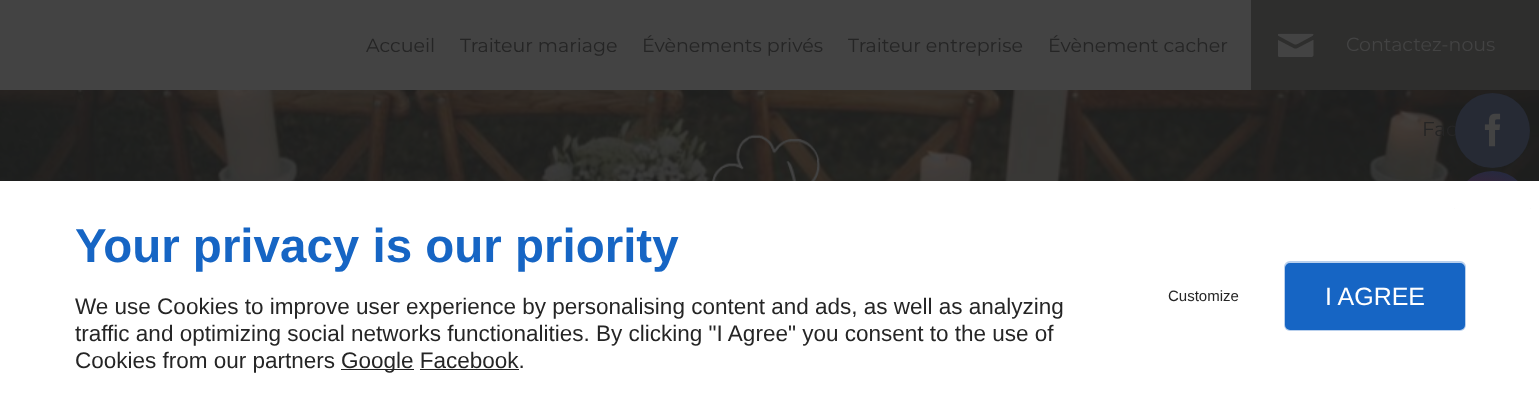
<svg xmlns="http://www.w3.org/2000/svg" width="1539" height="412">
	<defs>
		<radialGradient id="g1" gradientUnits="userSpaceOnUse" cx="1478" cy="252" r="96"><stop offset="0" stop-color="#434234" /><stop offset="0.05" stop-color="#434234" /><stop offset="0.45" stop-color="#432A28" /><stop offset="0.6" stop-color="#3D2235" /><stop offset="0.9" stop-color="#232A40" /></radialGradient>
	</defs>
	<rect width="100%" height="100%" fill="#FFFFFF" />
	<rect x="0" y="0" width="1251" height="90" fill="#434343" />
	<g font-family="Montserrat" font-size="19" fill="#252525">
		<text x="366" y="52">Accueil</text>
		<text x="460" y="52">Traiteur mariage</text>
		<text x="642" y="52">Évènements privés</text>
		<text x="848" y="52">Traiteur entreprise</text>
		<text x="1048" y="52">Évènement cacher</text>
	</g>
	<rect x="1251" y="0" width="288" height="90" fill="#2E2E2D" />
	<image x="1278" y="33" width="36" height="25" href="assets/img1.png" />
	<text x="1346" y="51" font-family="Montserrat" font-size="19" fill="#434343">Contactez-nous</text>
	<image x="0" y="90" width="1539" height="91" href="assets/img2.png" />
	<text x="1422" y="136" font-family="Montserrat" font-size="20" fill="#252525">Fac</text>
	<circle cx="1492.5" cy="130.5" r="37.5" fill="#262A34" />
	<image x="1484" y="113" width="17" height="34" href="assets/img3.png" />
	<circle cx="1492.5" cy="208.5" r="37.5" fill="url(#g1)" />
	<image x="711" y="134" width="110" height="47" href="assets/img4.png" />
	<rect x="1455" y="181" width="75" height="65" fill="#FFFFFF" />
	<text x="75" y="262" font-family="Liberation Sans" font-size="47.5" font-weight="700" fill="#1665C4">Your privacy is our priority</text>
	<g font-family="Liberation Sans" font-size="22.5" fill="#252525">
		<text x="75" y="314">We use Cookies to improve user experience by personalising content and ads, as well as analyzing</text>
		<text x="75" y="341">traffic and optimizing social networks functionalities. By clicking "I Agree" you consent to the use of</text>
		<text x="75" y="368">Cookies from our partners</text>
	</g>
	<rect x="341" y="369" width="73" height="1" fill="#222222" />
	<text x="341" y="368" font-family="Liberation Sans" font-size="22.5" fill="#252525">Google Facebook.</text>
	<rect x="420" y="369" width="99" height="1" fill="#222222" />
	<text x="1168" y="301" font-family="Liberation Sans" font-size="15" fill="#252525">Customize</text>
	<rect x="1284" y="261" width="182" height="70" rx="6" fill="#1665C4" fill-opacity="0.3" filter="blur(0.5px)" />
	<rect x="1286.5" y="264.5" width="177" height="64" rx="3.5" fill="#1665C4" stroke="#1665C4" stroke-width="3" />
	<text x="1325" y="305" font-family="Liberation Sans" font-size="25" fill="#FFFFFF">I AGREE</text>
</svg>
